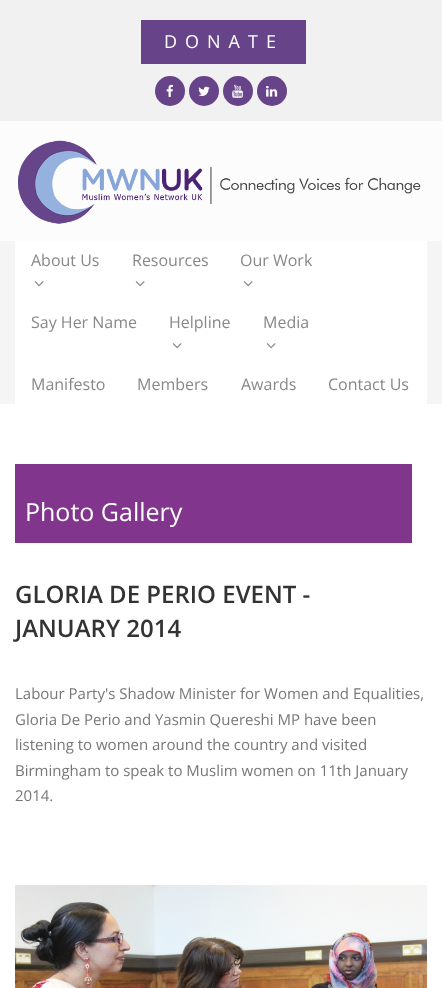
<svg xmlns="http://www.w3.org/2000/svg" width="442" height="988">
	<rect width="100%" height="100%" fill="#FFFFFF" />
	<rect x="0" y="0" width="442" height="121" fill="#F1F1F1" />
	<rect x="141" y="20" width="165" height="44" fill="#674389" />
	<text x="164" y="48" font-family="Open Sans" font-size="18" letter-spacing="8" fill="#FFFFFF">DONATE</text>
	<circle cx="170" cy="91" r="15" fill="#674389" />
	<image x="166" y="84" width="7" height="13" href="assets/img1.png" />
	<circle cx="204" cy="91" r="15" fill="#674389" />
	<image x="198" y="86" width="12" height="10" href="assets/img2.png" />
	<circle cx="238" cy="91" r="15" fill="#674389" />
	<image x="232" y="84" width="11" height="14" href="assets/img3.png" />
	<circle cx="272" cy="91" r="15" fill="#674389" />
	<image x="266" y="85" width="12" height="12" href="assets/img4.png" />
	<rect x="0" y="121" width="442" height="120" fill="#FCFCFC" />
	<image x="18" y="140" width="403" height="84" href="assets/img5.png" />
	<rect x="0" y="241" width="442" height="163" fill="#F5F5F5" />
	<rect x="15" y="241" width="412" height="163" fill="#FFFFFF" />
	<text x="31" y="266" font-family="Open Sans" font-size="16" fill="#888888">About Us</text>
	<image x="34" y="281" width="10" height="6" href="assets/img6.png" />
	<text x="132" y="266" font-family="Open Sans" font-size="16" fill="#888888">Resources</text>
	<image x="135" y="281" width="10" height="6" href="assets/img6.png" />
	<text x="240" y="266" font-family="Open Sans" font-size="16" fill="#888888">Our Work</text>
	<image x="243" y="281" width="10" height="6" href="assets/img6.png" />
	<g font-family="Open Sans" font-size="16" fill="#888888">
		<text x="31" y="328">Say Her Name</text>
		<text x="169" y="328">Helpline</text>
	</g>
	<image x="172" y="343" width="10" height="6" href="assets/img6.png" />
	<text x="263" y="328" font-family="Open Sans" font-size="16" fill="#888888">Media</text>
	<image x="266" y="343" width="10" height="6" href="assets/img6.png" />
	<g font-family="Open Sans" font-size="16" fill="#888888">
		<text x="31" y="390">Manifesto</text>
		<text x="137" y="390">Members</text>
		<text x="241" y="390">Awards</text>
		<text x="328" y="390">Contact Us</text>
	</g>
	<rect x="15" y="464" width="397" height="79" fill="#82358C" />
	<text x="25" y="521" font-family="Open Sans" font-size="25" fill="#FFFFFF">Photo Gallery</text>
	<g font-family="Open Sans" font-size="24" font-weight="600" fill="#333333">
		<text x="15" y="603">GLORIA DE PERIO EVENT -</text>
		<text x="15" y="637">JANUARY 2014</text>
	</g>
	<g font-family="Open Sans" font-size="15" fill="#777777">
		<text x="15" y="699">Labour Party's Shadow Minister for Women and Equalities,</text>
		<text x="15" y="725">Gloria De Perio and Yasmin Quereshi MP have been</text>
		<text x="15" y="750">listening to women around the country and visited</text>
		<text x="15" y="776">Birmingham to speak to Muslim women on 11th January</text>
		<text x="15" y="801">2014.</text>
	</g>
	<image x="15" y="885" width="412" height="103" href="assets/img7.png" />
</svg>
